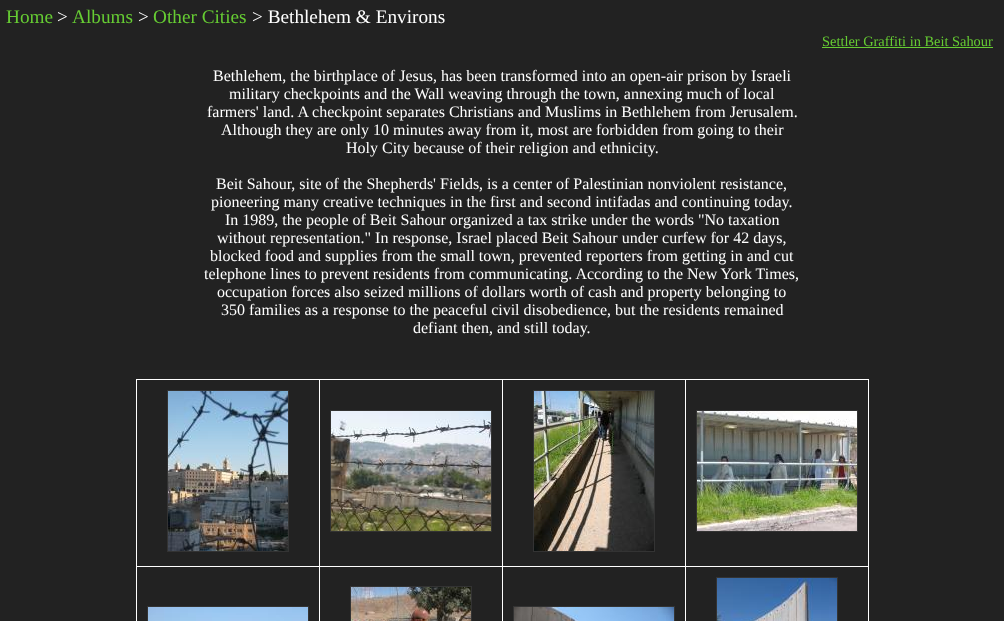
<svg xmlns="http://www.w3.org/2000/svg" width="1004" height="621">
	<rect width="100%" height="100%" fill="#222222" />
	<text x="6" y="23" font-family="Liberation Serif" font-size="19.25" fill="#66CC33">Home</text>
	<text x="57" y="23" font-family="Liberation Serif" font-size="19.25" fill="#FFFFFF">&gt;</text>
	<text x="72" y="23" font-family="Liberation Serif" font-size="19.25" fill="#66CC33">Albums</text>
	<text x="138" y="23" font-family="Liberation Serif" font-size="19.25" fill="#FFFFFF">&gt;</text>
	<text x="153" y="23" font-family="Liberation Serif" font-size="19.25" fill="#66CC33">Other Cities</text>
	<text x="252" y="23" font-family="Liberation Serif" font-size="19.25" fill="#FFFFFF">&gt; Bethlehem &amp; Environs</text>
	<text x="822" y="46" font-family="Liberation Serif" font-size="14.4" fill="#66CC33">Settler Graffiti in Beit Sahour</text>
	<rect x="822" y="47" width="171" height="1" fill="#66CC33" />
	<g font-family="Liberation Serif" font-size="16" fill="#FFFFFF">
		<text x="213" y="81">Bethlehem, the birthplace of Jesus, has been transformed into an open-air prison by Israeli</text>
		<text x="229" y="99">military checkpoints and the Wall weaving through the town, annexing much of local</text>
		<text x="207" y="117">farmers' land. A checkpoint separates Christians and Muslims in Bethlehem from Jerusalem.</text>
		<text x="221" y="135">Although they are only 10 minutes away from it, most are forbidden from going to their</text>
		<text x="346" y="153">Holy City because of their religion and ethnicity.</text>
		<text x="216" y="189">Beit Sahour, site of the Shepherds' Fields, is a center of Palestinian nonviolent resistance,</text>
		<text x="211" y="207">pioneering many creative techniques in the first and second intifadas and continuing today.</text>
		<text x="225" y="225">In 1989, the people of Beit Sahour organized a tax strike under the words "No taxation</text>
		<text x="217" y="243">without representation." In response, Israel placed Beit Sahour under curfew for 42 days,</text>
		<text x="210" y="261">blocked food and supplies from the small town, prevented reporters from getting in and cut</text>
		<text x="204" y="279">telephone lines to prevent residents from communicating. According to the New York Times,</text>
		<text x="217" y="297">occupation forces also seized millions of dollars worth of cash and property belonging to</text>
		<text x="221" y="315">350 families as a response to the peaceful civil disobedience, but the residents remained</text>
		<text x="413" y="333">defiant then, and still today.</text>
	</g>
	<rect x="685" y="379" width="184" height="1" fill="#FFFFFF" />
	<rect x="685" y="566" width="184" height="1" fill="#FFFFFF" />
	<rect x="685" y="566" width="1" height="55" fill="#FFFFFF" />
	<rect x="502" y="566" width="184" height="1" fill="#FFFFFF" />
	<rect x="685" y="379" width="1" height="188" fill="#FFFFFF" />
	<rect x="502" y="379" width="184" height="1" fill="#FFFFFF" />
	<rect x="502" y="566" width="1" height="55" fill="#FFFFFF" />
	<rect x="319" y="566" width="184" height="1" fill="#FFFFFF" />
	<rect x="502" y="379" width="1" height="188" fill="#FFFFFF" />
	<rect x="319" y="379" width="184" height="1" fill="#FFFFFF" />
	<rect x="319" y="566" width="1" height="55" fill="#FFFFFF" />
	<rect x="136" y="566" width="184" height="1" fill="#FFFFFF" />
	<rect x="319" y="379" width="1" height="188" fill="#FFFFFF" />
	<rect x="136" y="379" width="184" height="1" fill="#FFFFFF" />
	<rect x="136" y="566" width="1" height="55" fill="#FFFFFF" />
	<rect x="136" y="379" width="1" height="188" fill="#FFFFFF" />
	<rect x="167.5" y="390.5" width="121" height="161" fill="none" stroke="#333333" />
	<image x="168" y="391" width="120" height="160" href="assets/img1.png" />
	<rect x="330.5" y="410.5" width="161" height="121" fill="none" stroke="#333333" />
	<image x="331" y="411" width="160" height="120" href="assets/img2.png" />
	<rect x="533.5" y="390.5" width="121" height="161" fill="none" stroke="#333333" />
	<image x="534" y="391" width="120" height="160" href="assets/img3.png" />
	<rect x="868" y="566" width="1" height="55" fill="#FFFFFF" />
	<rect x="868" y="379" width="1" height="188" fill="#FFFFFF" />
	<rect x="696.5" y="410.5" width="161" height="121" fill="none" stroke="#333333" />
	<image x="697" y="411" width="160" height="120" href="assets/img4.png" />
	<rect x="147.5" y="606.5" width="161" height="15" fill="none" stroke="#333333" />
	<image x="148" y="607" width="160" height="14" href="assets/img5.png" />
	<rect x="350.5" y="586.5" width="121" height="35" fill="none" stroke="#333333" />
	<image x="351" y="587" width="120" height="34" href="assets/img6.png" />
	<rect x="513.5" y="606.5" width="161" height="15" fill="none" stroke="#333333" />
	<image x="514" y="607" width="160" height="14" href="assets/img7.png" />
	<rect x="716.5" y="577.5" width="121" height="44" fill="none" stroke="#333333" />
	<image x="717" y="578" width="120" height="43" href="assets/img8.png" />
</svg>
